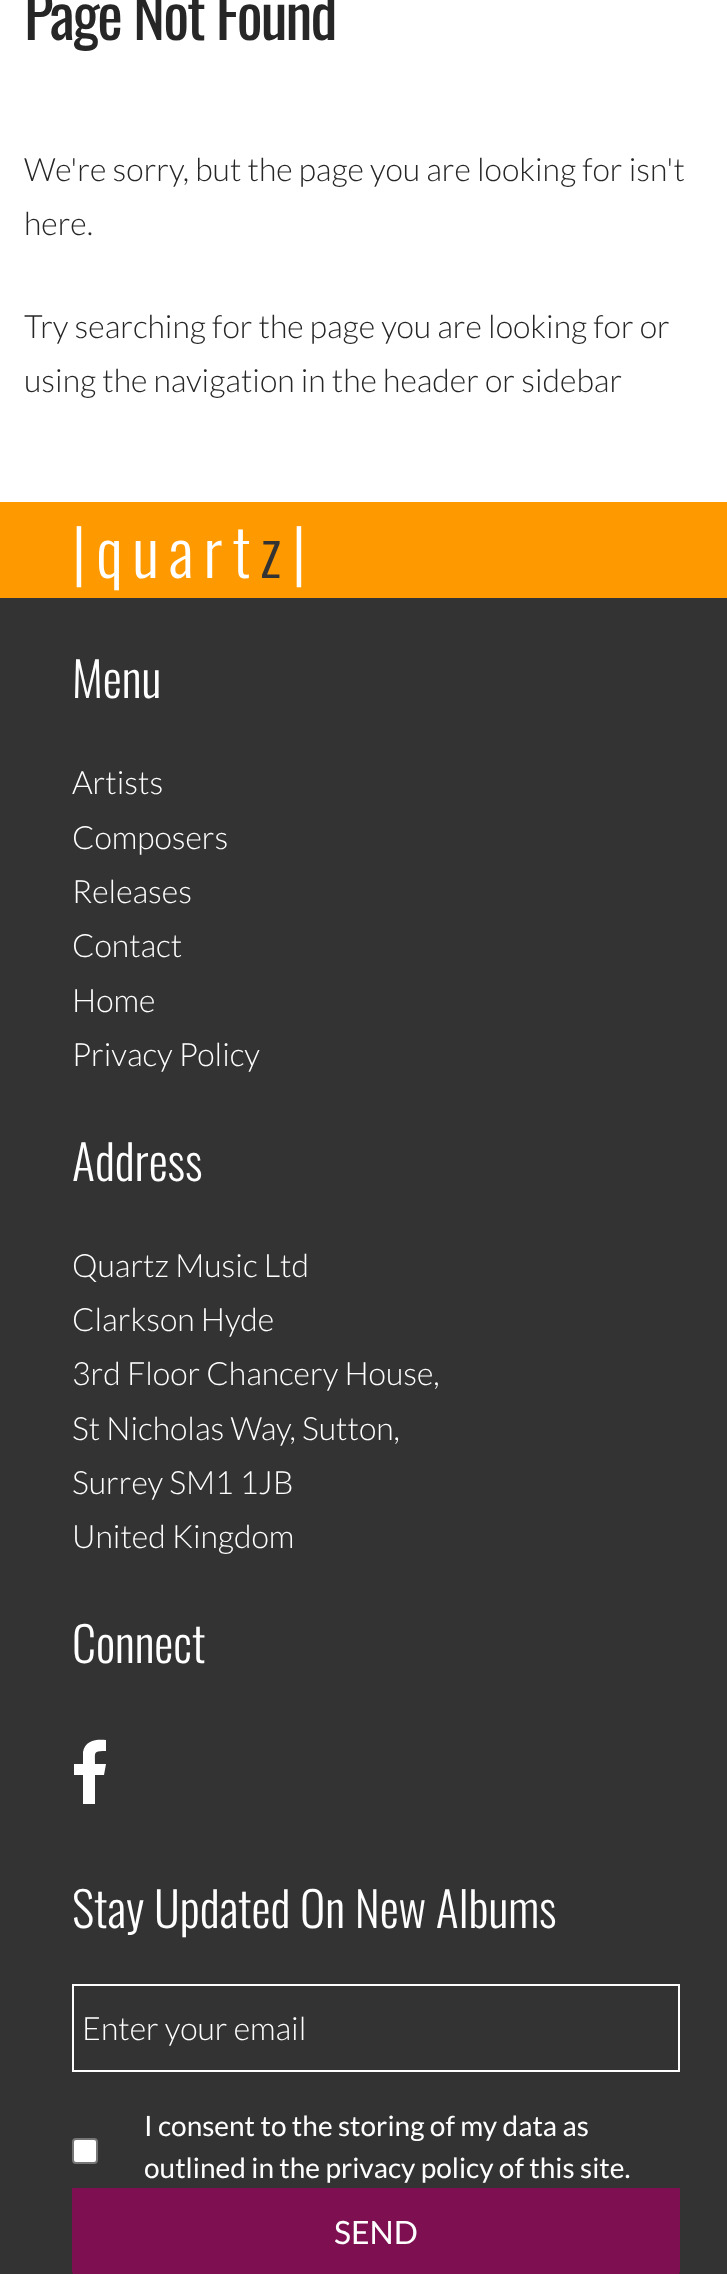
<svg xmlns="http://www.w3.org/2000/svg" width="727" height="2274">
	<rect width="100%" height="100%" fill="#333333" />
	<rect x="0" y="0" width="727" height="502" fill="#FFFFFF" />
	<text x="24" y="40" font-family="Oswald" font-size="61" letter-spacing="-2" fill="#262626">Page Not Found</text>
	<g font-family="Lato" font-size="32" font-weight="300" fill="#262626">
		<text x="24" y="181">We're sorry, but the page you are looking for isn't</text>
		<text x="24" y="235">here.</text>
		<text x="24" y="338">Try searching for the page you are looking for or</text>
		<text x="24" y="392">using the navigation in the header or sidebar</text>
	</g>
	<rect x="0" y="502" width="727" height="96" fill="#FF9900" />
	<text x="72" y="578" font-family="Oswald" font-size="64" font-weight="300" letter-spacing="10" fill="#FFFFFF">|quart</text>
	<text x="260" y="578" font-family="Oswald" font-size="64" font-weight="300" letter-spacing="10" fill="#333333">z</text>
	<text x="292" y="578" font-family="Oswald" font-size="64" font-weight="300" letter-spacing="10" fill="#FFFFFF">|</text>
	<text x="72" y="698" font-family="Oswald" font-size="48" font-weight="300" fill="#FFFFFF">Menu</text>
	<g font-family="Lato" font-size="32" font-weight="300" fill="#FFFFFF">
		<text x="72" y="794">Artists</text>
		<text x="72" y="849">Composers</text>
		<text x="72" y="903">Releases</text>
		<text x="72" y="957">Contact</text>
		<text x="72" y="1012">Home</text>
		<text x="72" y="1066">Privacy Policy</text>
	</g>
	<text x="72" y="1181" font-family="Oswald" font-size="48" font-weight="300" fill="#FFFFFF">Address</text>
	<g font-family="Lato" font-size="32" font-weight="300" fill="#FFFFFF">
		<text x="72" y="1277">Quartz Music Ltd</text>
		<text x="72" y="1331">Clarkson Hyde</text>
		<text x="72" y="1385">3rd Floor Chancery House,</text>
		<text x="72" y="1440">St Nicholas Way, Sutton,</text>
		<text x="72" y="1494">Surrey SM1 1JB</text>
		<text x="72" y="1548">United Kingdom</text>
	</g>
	<text x="72" y="1663" font-family="Oswald" font-size="48" font-weight="300" fill="#FFFFFF">Connect</text>
	<path d="M83 1804V1775H74V1764H83V1752C85 1740 97 1739 106 1740V1751C93 1751 95 1752 95 1764H106L104 1775H95V1804" fill="#FFFFFF" />
	<text x="72" y="1928" font-family="Oswald" font-size="48" font-weight="300" fill="#FFFFFF">Stay Updated On New Albums</text>
	<rect x="73" y="1985" width="606" height="86" fill="none" stroke="#FFFFFF" stroke-width="2" />
	<text x="82" y="2040" font-family="Lato" font-size="32" font-weight="300" fill="#FFFFFF">Enter your email</text>
	<rect x="73" y="2139" width="24" height="24" rx="3" fill="#FFFFFF" stroke="#767676" stroke-width="2" />
	<g font-family="Lato" font-size="28" fill="#FFFFFF">
		<text x="144" y="2136">I consent to the storing of my data as</text>
		<text x="144" y="2178">outlined in the privacy policy of this site.</text>
	</g>
	<path d="M72 2188H680V2270C680 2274.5 676.5 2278 672 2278H80C75.5 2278 72 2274.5 72 2270Z" fill="#7E1051" />
	<path d="M72 2188H680V2270C680 2274 676 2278 672 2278H80C76 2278 72 2274 72 2270ZM74 2188H678V2270C678 2273 675 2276 672 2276H80C77 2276 74 2273 74 2270Z" fill="#7E1051" fill-rule="evenodd" />
	<text x="334" y="2244" font-family="Lato" font-size="32" fill="#FFFFFF">SEND</text>
</svg>
